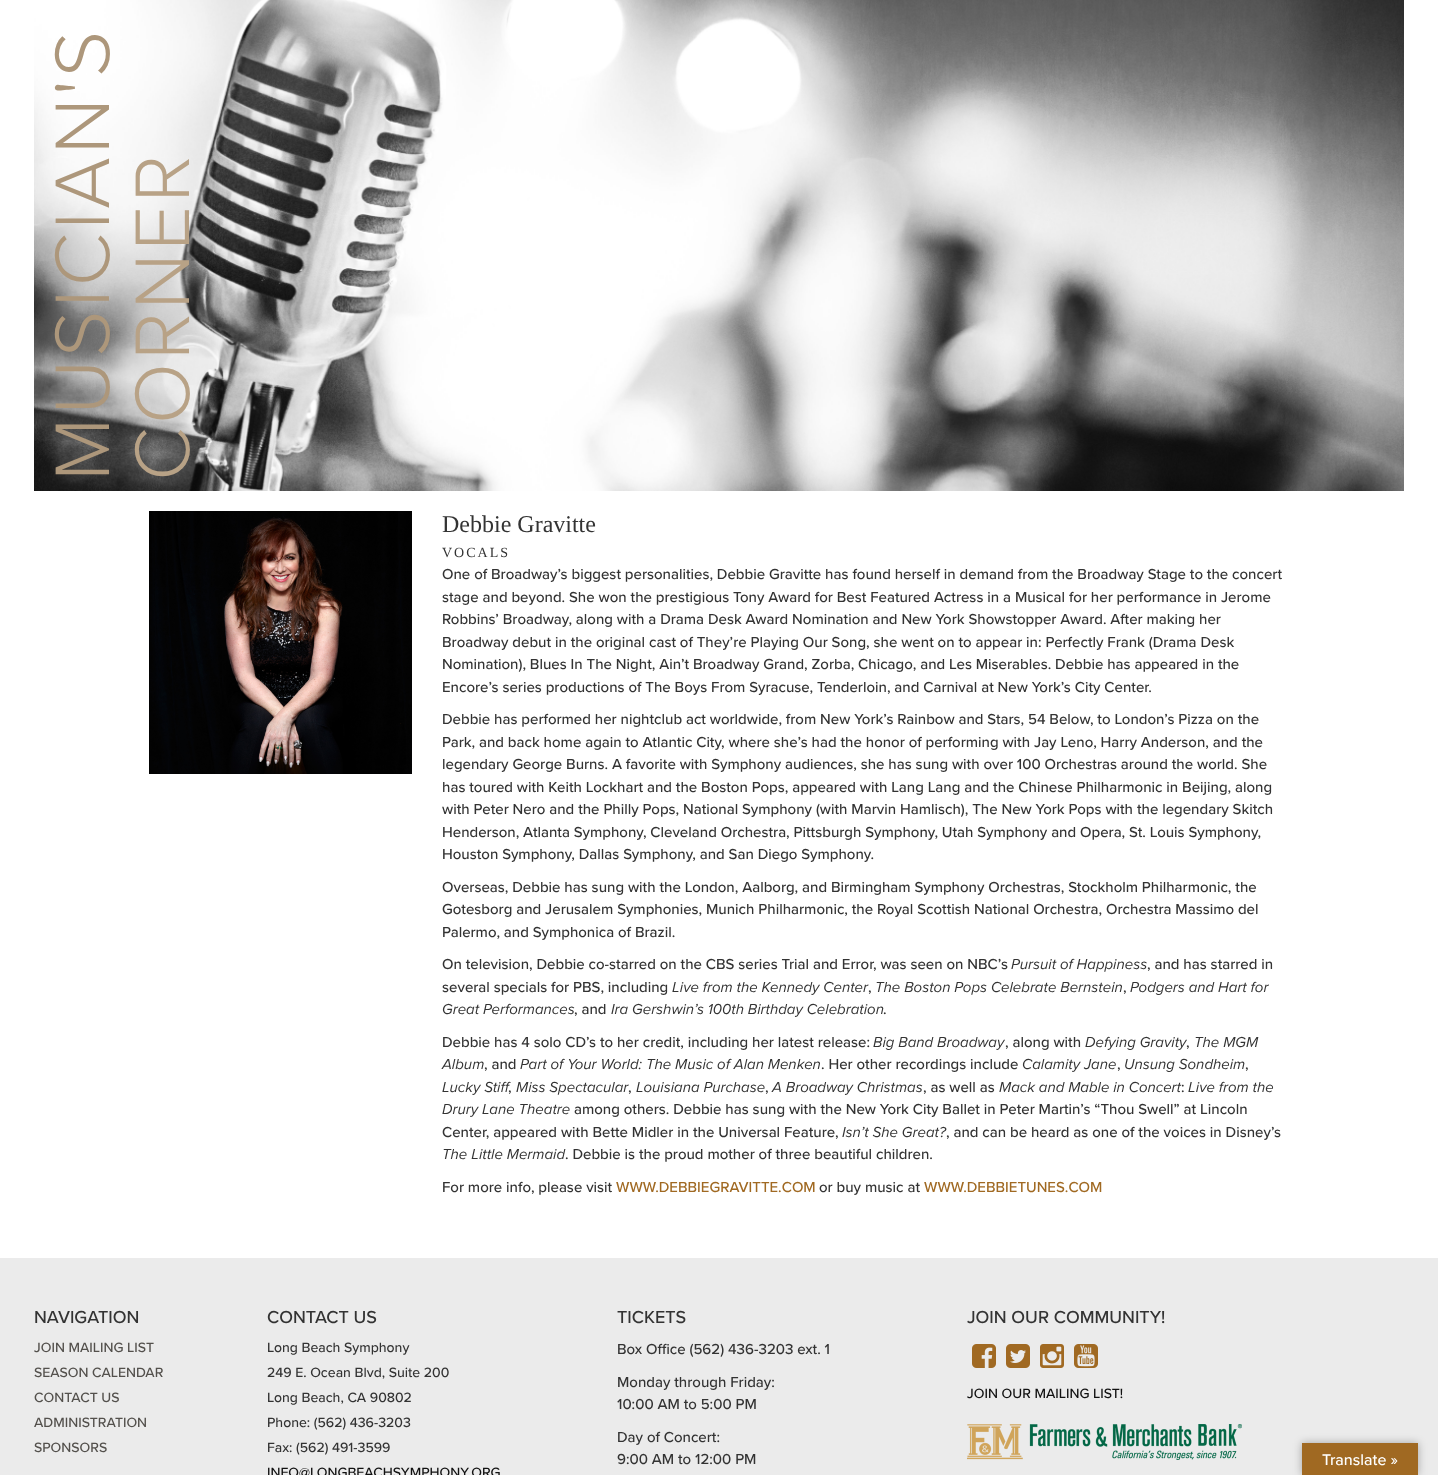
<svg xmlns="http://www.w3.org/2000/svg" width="1438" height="1475">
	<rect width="100%" height="100%" fill="#FFFFFF" />
	<image x="34" y="0" width="1370" height="491" href="assets/img1.png" />
	<text x="109" y="481" transform="rotate(-90 109 481)" font-family="Proxima Nova" font-size="80" font-weight="300" letter-spacing="3" fill="#AD977B">MUSICIAN'S</text>
	<text x="189" y="481" transform="rotate(-90 189 481)" font-family="Proxima Nova" font-size="80" font-weight="300" letter-spacing="3" fill="#B8A286">CORNER</text>
	<image x="149" y="511" width="263" height="263" href="assets/img2.png" />
	<text x="442" y="532" font-family="Liberation Serif" font-size="24" fill="#333333">Debbie Gravitte</text>
	<text x="442" y="557" font-family="Liberation Serif" font-size="14" letter-spacing="2" fill="#333333">VOCALS</text>
	<g font-family="Proxima Nova" font-size="15" font-weight="500" fill="#333333">
		<text x="442" y="579">One of Broadway’s biggest personalities, Debbie Gravitte has found herself in demand from the Broadway Stage to the concert</text>
		<text x="442" y="602">stage and beyond. She won the prestigious Tony Award for Best Featured Actress in a Musical for her performance in Jerome</text>
		<text x="442" y="624">Robbins’ Broadway, along with a Drama Desk Award Nomination and New York Showstopper Award. After making her</text>
		<text x="442" y="647">Broadway debut in the original cast of They’re Playing Our Song, she went on to appear in: Perfectly Frank (Drama Desk</text>
		<text x="442" y="669">Nomination), Blues In The Night, Ain’t Broadway Grand, Zorba, Chicago, and Les Miserables. Debbie has appeared in the</text>
		<text x="442" y="692">Encore’s series productions of The Boys From Syracuse, Tenderloin, and Carnival at New York’s City Center.</text>
		<text x="442" y="724">Debbie has performed her nightclub act worldwide, from New York’s Rainbow and Stars, 54 Below, to London’s Pizza on the</text>
		<text x="442" y="747">Park, and back home again to Atlantic City, where she’s had the honor of performing with Jay Leno, Harry Anderson, and the</text>
		<text x="442" y="769">legendary George Burns. A favorite with Symphony audiences, she has sung with over 100 Orchestras around the world. She</text>
		<text x="442" y="792">has toured with Keith Lockhart and the Boston Pops, appeared with Lang Lang and the Chinese Philharmonic in Beijing, along</text>
		<text x="442" y="814">with Peter Nero and the Philly Pops, National Symphony (with Marvin Hamlisch), The New York Pops with the legendary Skitch</text>
		<text x="442" y="837">Henderson, Atlanta Symphony, Cleveland Orchestra, Pittsburgh Symphony, Utah Symphony and Opera, St. Louis Symphony,</text>
		<text x="442" y="859">Houston Symphony, Dallas Symphony, and San Diego Symphony.</text>
		<text x="442" y="892">Overseas, Debbie has sung with the London, Aalborg, and Birmingham Symphony Orchestras, Stockholm Philharmonic, the</text>
		<text x="442" y="914">Gotesborg and Jerusalem Symphonies, Munich Philharmonic, the Royal Scottish National Orchestra, Orchestra Massimo del</text>
		<text x="442" y="937">Palermo, and Symphonica of Brazil.</text>
		<text x="442" y="969">On television, Debbie co-starred on the CBS series Trial and Error, was seen on NBC’s</text>
	</g>
	<text x="1011" y="969" font-family="Proxima Nova" font-size="15" font-style="italic" fill="#333333">Pursuit of Happiness</text>
	<g font-family="Proxima Nova" font-size="15" font-weight="500" fill="#333333">
		<text x="1147" y="969">, and has starred in</text>
		<text x="442" y="992">several specials for PBS, including</text>
	</g>
	<text x="672" y="992" font-family="Proxima Nova" font-size="15" font-style="italic" fill="#333333">Live from the Kennedy Center</text>
	<text x="868" y="992" font-family="Proxima Nova" font-size="15" font-weight="500" fill="#333333">,</text>
	<text x="875" y="992" font-family="Proxima Nova" font-size="15" font-style="italic" fill="#333333">The Boston Pops Celebrate Bernstein</text>
	<text x="1123" y="992" font-family="Proxima Nova" font-size="15" font-weight="500" fill="#333333">,</text>
	<g font-family="Proxima Nova" font-size="15" font-style="italic" fill="#333333">
		<text x="1130" y="992">Podgers and Hart for</text>
		<text x="442" y="1014">Great Performances</text>
	</g>
	<text x="574" y="1014" font-family="Proxima Nova" font-size="15" font-weight="500" fill="#333333">, and</text>
	<text x="611" y="1014" font-family="Proxima Nova" font-size="15" font-style="italic" fill="#333333">Ira Gershwin’s 100th Birthday Celebration</text>
	<g font-family="Proxima Nova" font-size="15" font-weight="500" fill="#333333">
		<text x="883" y="1014">.</text>
		<text x="442" y="1047">Debbie has 4 solo CD’s to her credit, including her latest release:</text>
	</g>
	<text x="873" y="1047" font-family="Proxima Nova" font-size="15" font-style="italic" fill="#333333">Big Band Broadway</text>
	<text x="1005" y="1047" font-family="Proxima Nova" font-size="15" font-weight="500" fill="#333333">, along with</text>
	<text x="1085" y="1047" font-family="Proxima Nova" font-size="15" font-style="italic" fill="#333333">Defying Gravity</text>
	<text x="1186" y="1047" font-family="Proxima Nova" font-size="15" font-weight="500" fill="#333333">,</text>
	<g font-family="Proxima Nova" font-size="15" font-style="italic" fill="#333333">
		<text x="1194" y="1047">The MGM</text>
		<text x="442" y="1069">Album</text>
	</g>
	<text x="484" y="1069" font-family="Proxima Nova" font-size="15" font-weight="500" fill="#333333">, and</text>
	<text x="520" y="1069" font-family="Proxima Nova" font-size="15" font-style="italic" fill="#333333">Part of Your World: The Music of Alan Menken</text>
	<text x="821" y="1069" font-family="Proxima Nova" font-size="15" font-weight="500" fill="#333333">. Her other recordings include</text>
	<text x="1022" y="1069" font-family="Proxima Nova" font-size="15" font-style="italic" fill="#333333">Calamity Jane</text>
	<text x="1117" y="1069" font-family="Proxima Nova" font-size="15" font-weight="500" fill="#333333">,</text>
	<text x="1124" y="1069" font-family="Proxima Nova" font-size="15" font-style="italic" fill="#333333">Unsung Sondheim</text>
	<text x="1245" y="1069" font-family="Proxima Nova" font-size="15" font-weight="500" fill="#333333">,</text>
	<g font-family="Proxima Nova" font-size="15" font-style="italic" fill="#333333">
		<text x="442" y="1092">Lucky Stiff</text>
		<text x="516" y="1092">Miss Spectacular</text>
		<text x="636" y="1092">Louisiana Purchase</text>
		<text x="772" y="1092">A Broadway Christmas</text>
	</g>
	<text x="923" y="1092" font-family="Proxima Nova" font-size="15" font-weight="500" fill="#333333">, as well as</text>
	<text x="999" y="1092" font-family="Proxima Nova" font-size="15" font-style="italic" fill="#333333">Mack and Mable in Concert</text>
	<text x="1181" y="1092" font-family="Proxima Nova" font-size="15" font-weight="500" fill="#333333">:</text>
	<text x="1188" y="1092" font-family="Proxima Nova" font-size="15" font-style="italic" fill="#333333">Live from the</text>
	<g font-family="Proxima Nova" font-size="15" font-weight="500" fill="#333333">
		<text x="508" y="1092">,</text>
		<text x="628" y="1092">,</text>
		<text x="765" y="1092">,</text>
	</g>
	<text x="442" y="1114" font-family="Proxima Nova" font-size="15" font-style="italic" fill="#333333">Drury Lane Theatre</text>
	<g font-family="Proxima Nova" font-size="15" font-weight="500" fill="#333333">
		<text x="574" y="1114">among others. Debbie has sung with the New York City Ballet in Peter Martin’s “Thou Swell” at Lincoln</text>
		<text x="442" y="1137">Center, appeared with Bette Midler in the Universal Feature,</text>
	</g>
	<text x="842" y="1137" font-family="Proxima Nova" font-size="15" font-style="italic" fill="#333333">Isn’t She Great?</text>
	<text x="946" y="1137" font-family="Proxima Nova" font-size="15" font-weight="500" fill="#333333">, and can be heard as one of the voices in Disney’s</text>
	<text x="442" y="1159" font-family="Proxima Nova" font-size="15" font-style="italic" fill="#333333">The Little Mermaid</text>
	<g font-family="Proxima Nova" font-size="15" font-weight="500" fill="#333333">
		<text x="565" y="1159">. Debbie is the proud mother of three beautiful children.</text>
		<text x="442" y="1192">For more info, please visit</text>
	</g>
	<text x="616" y="1192" font-family="Proxima Nova" font-size="15" font-weight="500" fill="#A06922">WWW.DEBBIEGRAVITTE.COM</text>
	<text x="819" y="1192" font-family="Proxima Nova" font-size="15" font-weight="500" fill="#333333">or buy music at</text>
	<text x="924" y="1192" font-family="Proxima Nova" font-size="15" font-weight="500" fill="#A06922">WWW.DEBBIETUNES.COM</text>
	<rect x="0" y="1258" width="1438" height="217" fill="#EBEBEB" />
	<text x="34" y="1323" font-family="Proxima Nova" font-size="18" font-weight="500" fill="#333333">NAVIGATION</text>
	<g font-family="Proxima Nova" font-size="14" font-weight="500" fill="#53504C">
		<text x="34" y="1352">JOIN MAILING LIST</text>
		<text x="34" y="1377">SEASON CALENDAR</text>
		<text x="34" y="1402">CONTACT US</text>
		<text x="34" y="1427">ADMINISTRATION</text>
		<text x="34" y="1452">SPONSORS</text>
	</g>
	<text x="267" y="1323" font-family="Proxima Nova" font-size="18" font-weight="500" fill="#333333">CONTACT US</text>
	<g font-family="Proxima Nova" font-size="14" font-weight="500" fill="#333333">
		<text x="267" y="1352">Long Beach Symphony</text>
		<text x="267" y="1377">249 E. Ocean Blvd, Suite 200</text>
		<text x="267" y="1402">Long Beach, CA 90802</text>
		<text x="267" y="1427">Phone: (562) 436-3203</text>
		<text x="267" y="1452">Fax: (562) 491-3599</text>
	</g>
	<text x="267" y="1477" font-family="Proxima Nova" font-size="14" font-weight="500" fill="#111111">INFO@LONGBEACHSYMPHONY.ORG</text>
	<text x="617" y="1323" font-family="Proxima Nova" font-size="18" font-weight="500" fill="#333333">TICKETS</text>
	<g font-family="Proxima Nova" font-size="15" font-weight="500" fill="#333333">
		<text x="617" y="1354">Box Office (562) 436-3203 ext. 1</text>
		<text x="617" y="1387">Monday through Friday:</text>
		<text x="617" y="1409">10:00 AM to 5:00 PM</text>
		<text x="617" y="1442">Day of Concert:</text>
		<text x="617" y="1464">9:00 AM to 12:00 PM</text>
	</g>
	<text x="967" y="1323" font-family="Proxima Nova" font-size="18" font-weight="500" fill="#333333">JOIN OUR COMMUNITY!</text>
	<image x="972" y="1344" width="24" height="24" href="assets/img3.png" />
	<image x="1006" y="1344" width="24" height="24" href="assets/img4.png" />
	<image x="1040" y="1344" width="24" height="24" href="assets/img5.png" />
	<image x="1074" y="1344" width="24" height="24" href="assets/img6.png" />
	<text x="967" y="1398" font-family="Proxima Nova" font-size="14" font-weight="500" fill="#111111">JOIN OUR MAILING LIST!</text>
	<image x="967" y="1424" width="275" height="36" href="assets/img7.png" />
	<rect x="1302" y="1443" width="116" height="32" fill="#000000" fill-opacity="0.3" filter="blur(4.5px)" />
	<rect x="1302" y="1443" width="116" height="32" fill="#A06922" />
	<text x="1322" y="1465" font-family="Proxima Nova" font-size="16" font-weight="500" fill="#FFFFFF">Translate »</text>
</svg>
